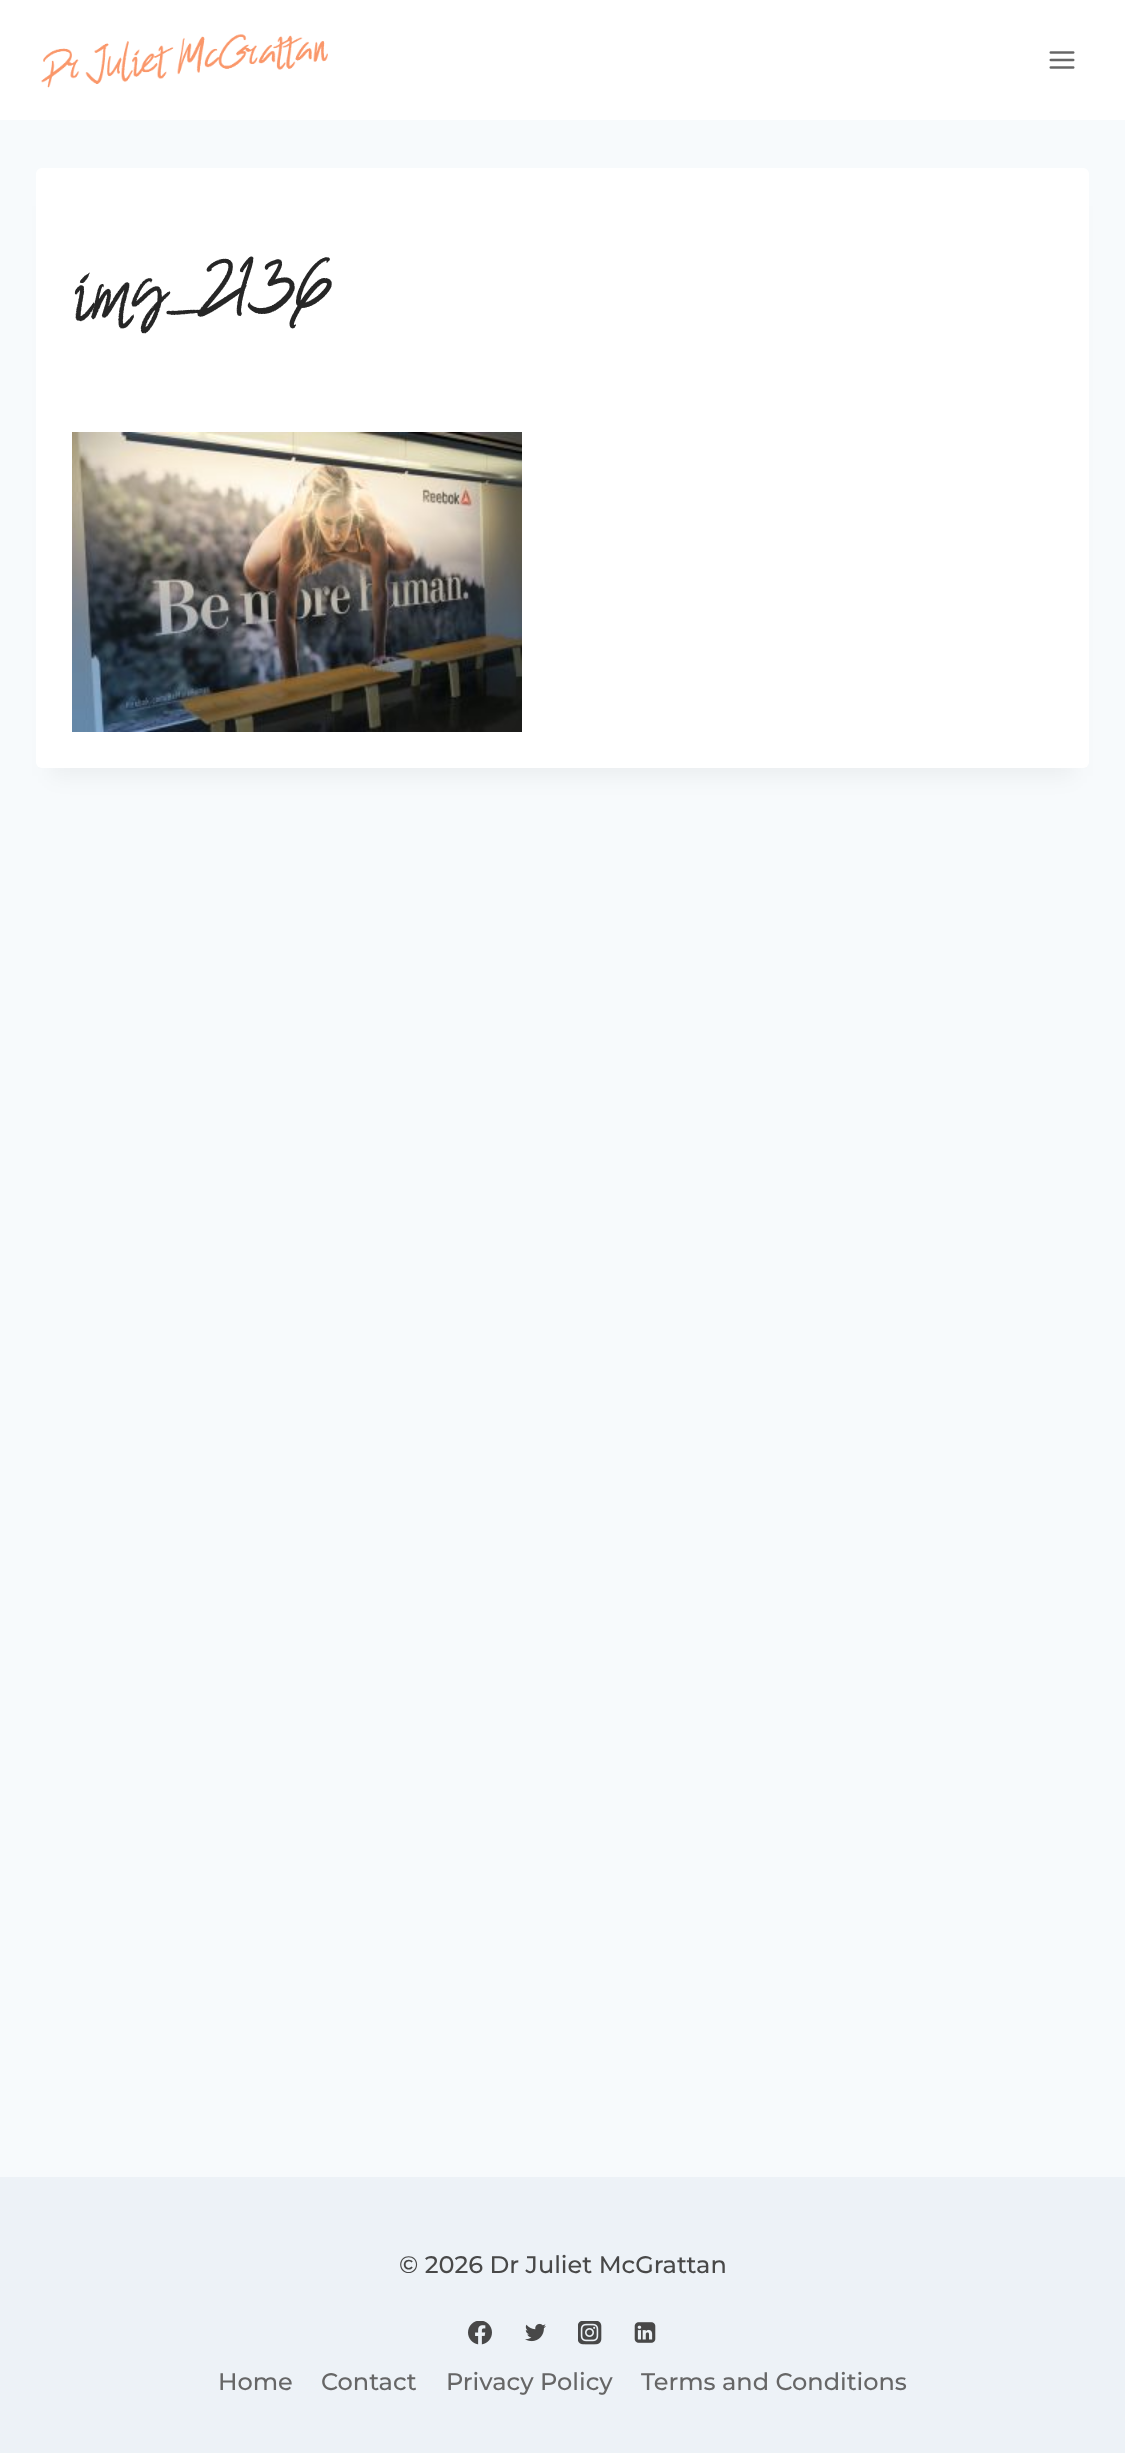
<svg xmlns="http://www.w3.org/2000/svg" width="1125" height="2453">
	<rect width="100%" height="100%" fill="#F7FAFC" />
	<rect x="0" y="0" width="1125" height="120" fill="#FFFFFF" />
	<image x="41" y="34" width="287" height="54" href="assets/img1.png" />
	<image x="1049" y="51" width="26" height="18" href="assets/img2.png" />
	<rect x="51" y="206" width="1023" height="570" fill="#000000" fill-opacity="0.05" filter="blur(11px)" />
	<rect x="36" y="168" width="1053" height="600" rx="6" fill="#FFFFFF" />
	<text x="72" y="314" font-family="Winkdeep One" font-size="72" fill="#262626">img_2136</text>
	<image x="72" y="432" width="450" height="300" href="assets/img3.png" />
	<rect x="0" y="2177" width="1125" height="276" fill="#EDF2F7" />
	<text x="399" y="2273" font-family="Montserrat" font-size="24" font-weight="500" fill="#484848">© 2026 Dr Juliet McGrattan</text>
	<image x="468" y="2321" width="24" height="24" href="assets/img4.png" />
	<image x="525" y="2323" width="21" height="19" href="assets/img5.png" />
	<image x="578" y="2321" width="24" height="24" href="assets/img6.png" />
	<image x="634" y="2322" width="22" height="21" href="assets/img7.png" />
	<g font-family="Montserrat" font-size="24" font-weight="500" fill="#666666">
		<text x="218" y="2390">Home</text>
		<text x="321" y="2390">Contact</text>
		<text x="446" y="2390">Privacy Policy</text>
		<text x="641" y="2390">Terms and Conditions</text>
	</g>
</svg>
